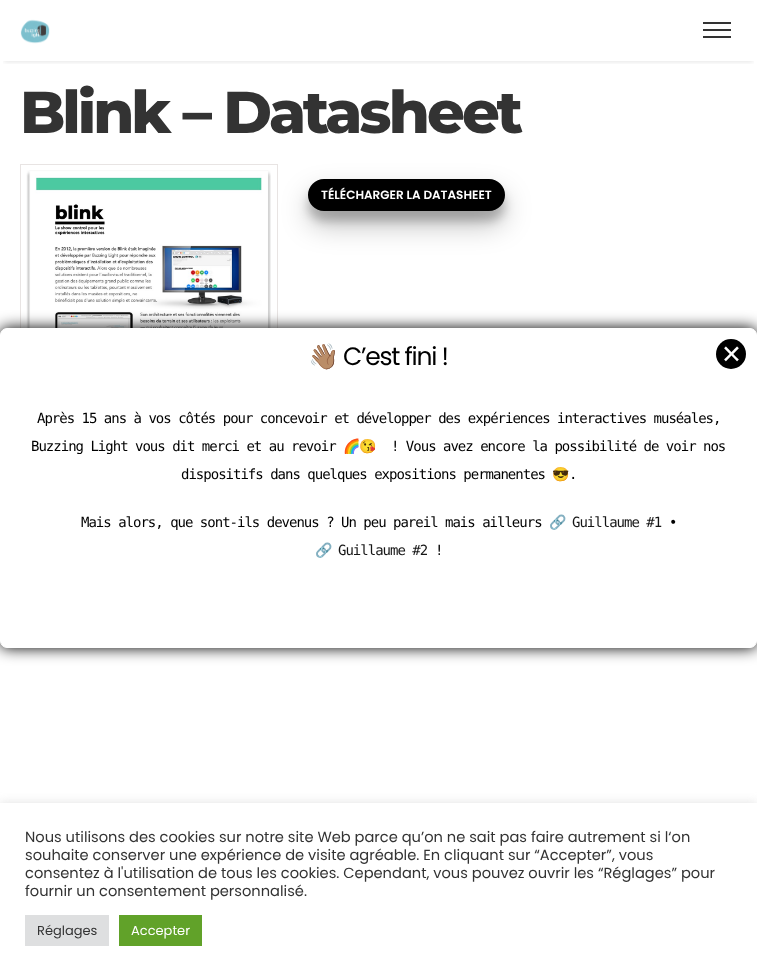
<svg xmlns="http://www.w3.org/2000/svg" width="757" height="976">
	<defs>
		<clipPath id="clip1"><rect x="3" y="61" width="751" height="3" /></clipPath>
	</defs>
	<rect width="100%" height="100%" fill="#FFFFFF" />
	<g clip-path="url(#clip1)">
		<rect x="4" y="9" width="749" height="53" fill="#000000" fill-opacity="0.1" filter="blur(2.5px)" />
	</g>
	<image x="20" y="19" width="30" height="25" href="assets/img1.png" />
	<rect x="703" y="29" width="28" height="2" fill="#333333" />
	<rect x="703" y="22" width="28" height="2" fill="#333333" />
	<rect x="703" y="36" width="28" height="2" fill="#333333" />
	<text x="20" y="133" font-family="Montserrat" font-size="59" font-weight="800" letter-spacing="-3" fill="#333333">Blink – Datasheet</text>
	<rect x="20.5" y="164.5" width="257" height="359" fill="none" stroke="#E8E4E3" />
	<image x="26" y="170" width="245" height="158" href="assets/img2.png" />
	<rect x="308" y="189" width="197" height="32" rx="16" fill="#000000" fill-opacity="0.22" filter="blur(5px)" />
	<rect x="308" y="193" width="197" height="32" rx="16" fill="#000000" fill-opacity="0.25" filter="blur(14px)" />
	<rect x="309" y="180" width="195" height="30" rx="15" fill="#000000" stroke="#000000" stroke-width="2" />
	<text x="321" y="199" font-family="Poppins" font-size="12" font-weight="600" fill="#FFFFFF">TÉLÉCHARGER LA DATASHEET</text>
	<rect x="0" y="328" width="757" height="320" rx="7" fill="#000000" filter="blur(7.5px)" />
	<rect x="0.5" y="328.5" width="756" height="319" rx="6.5" fill="#FFFFFF" stroke="#FFFFFF" />
	<text x="308" y="365" font-family="Noto Color Emoji" font-size="25" letter-spacing="-1.25" fill="#000000">👋🏽</text>
	<text x="343" y="365" font-family="Poppins" font-size="25" letter-spacing="-1.25" fill="#000000">C’est fini !</text>
	<circle cx="731" cy="354" r="15" fill="#000000" />
	<text x="721" y="363" font-family="DejaVu Sans" font-size="25" fill="#FFFFFF">✕</text>
	<g font-family="DejaVu Sans Mono" font-size="14" letter-spacing="-1" fill="#000000">
		<text x="37" y="423">Après 15 ans à vos côtés pour concevoir et développer des expériences interactives muséales,</text>
		<text x="31" y="451">Buzzing Light vous dit merci et au revoir</text>
	</g>
	<text x="343" y="451" font-family="Noto Color Emoji" font-size="14" letter-spacing="-1" fill="#000000">🌈😘</text>
	<g font-family="DejaVu Sans Mono" font-size="14" letter-spacing="-1" fill="#000000">
		<text x="391" y="451">! Vous avez encore la possibilité de voir nos</text>
		<text x="181" y="479">dispositifs dans quelques expositions permanentes</text>
	</g>
	<text x="552" y="479" font-family="Noto Color Emoji" font-size="14" letter-spacing="-1" fill="#000000">😎</text>
	<g font-family="DejaVu Sans Mono" font-size="14" letter-spacing="-1" fill="#000000">
		<text x="569" y="479">.</text>
		<text x="81" y="527">Mais alors, que sont-ils devenus ? Un peu pareil mais ailleurs</text>
	</g>
	<text x="549" y="527" font-family="Noto Color Emoji" font-size="14" letter-spacing="-1" fill="#151515">🔗</text>
	<text x="572" y="527" font-family="DejaVu Sans Mono" font-size="14" letter-spacing="-1" fill="#151515">Guillaume #1</text>
	<text x="669" y="527" font-family="DejaVu Sans Mono" font-size="14" letter-spacing="-1" fill="#000000">•</text>
	<text x="315" y="555" font-family="Noto Color Emoji" font-size="14" letter-spacing="-1" fill="#151515">🔗</text>
	<text x="338" y="555" font-family="DejaVu Sans Mono" font-size="14" letter-spacing="-1" fill="#151515">Guillaume #2</text>
	<text x="435" y="555" font-family="DejaVu Sans Mono" font-size="14" letter-spacing="-1" fill="#000000">!</text>
	<rect x="0" y="802" width="757" height="173" fill="#ACABAB" fill-opacity="0.3" filter="blur(5px)" />
	<rect x="0" y="803" width="757" height="173" fill="#FFFFFF" />
	<g font-family="Poppins" font-size="14.65" fill="#333333">
		<text x="25" y="842">Nous utilisons des cookies sur notre site Web parce qu’on ne sait pas faire autrement si l‘on</text>
		<text x="25" y="860">souhaite conserver une expérience de visite agréable. En cliquant sur “Accepter”, vous</text>
		<text x="25" y="878">consentez à l'utilisation de tous les cookies. Cependant, vous pouvez ouvrir les “Réglages” pour</text>
		<text x="25" y="896">fournir un consentement personnalisé.</text>
	</g>
	<rect x="25" y="915" width="84" height="31" fill="#DEDFE0" />
	<text x="37" y="935" font-family="Poppins" font-size="13" fill="#333333">Réglages</text>
	<rect x="119" y="915" width="83" height="31" fill="#61A229" />
	<text x="131" y="935" font-family="Poppins" font-size="13" fill="#FFFFFF">Accepter</text>
</svg>
